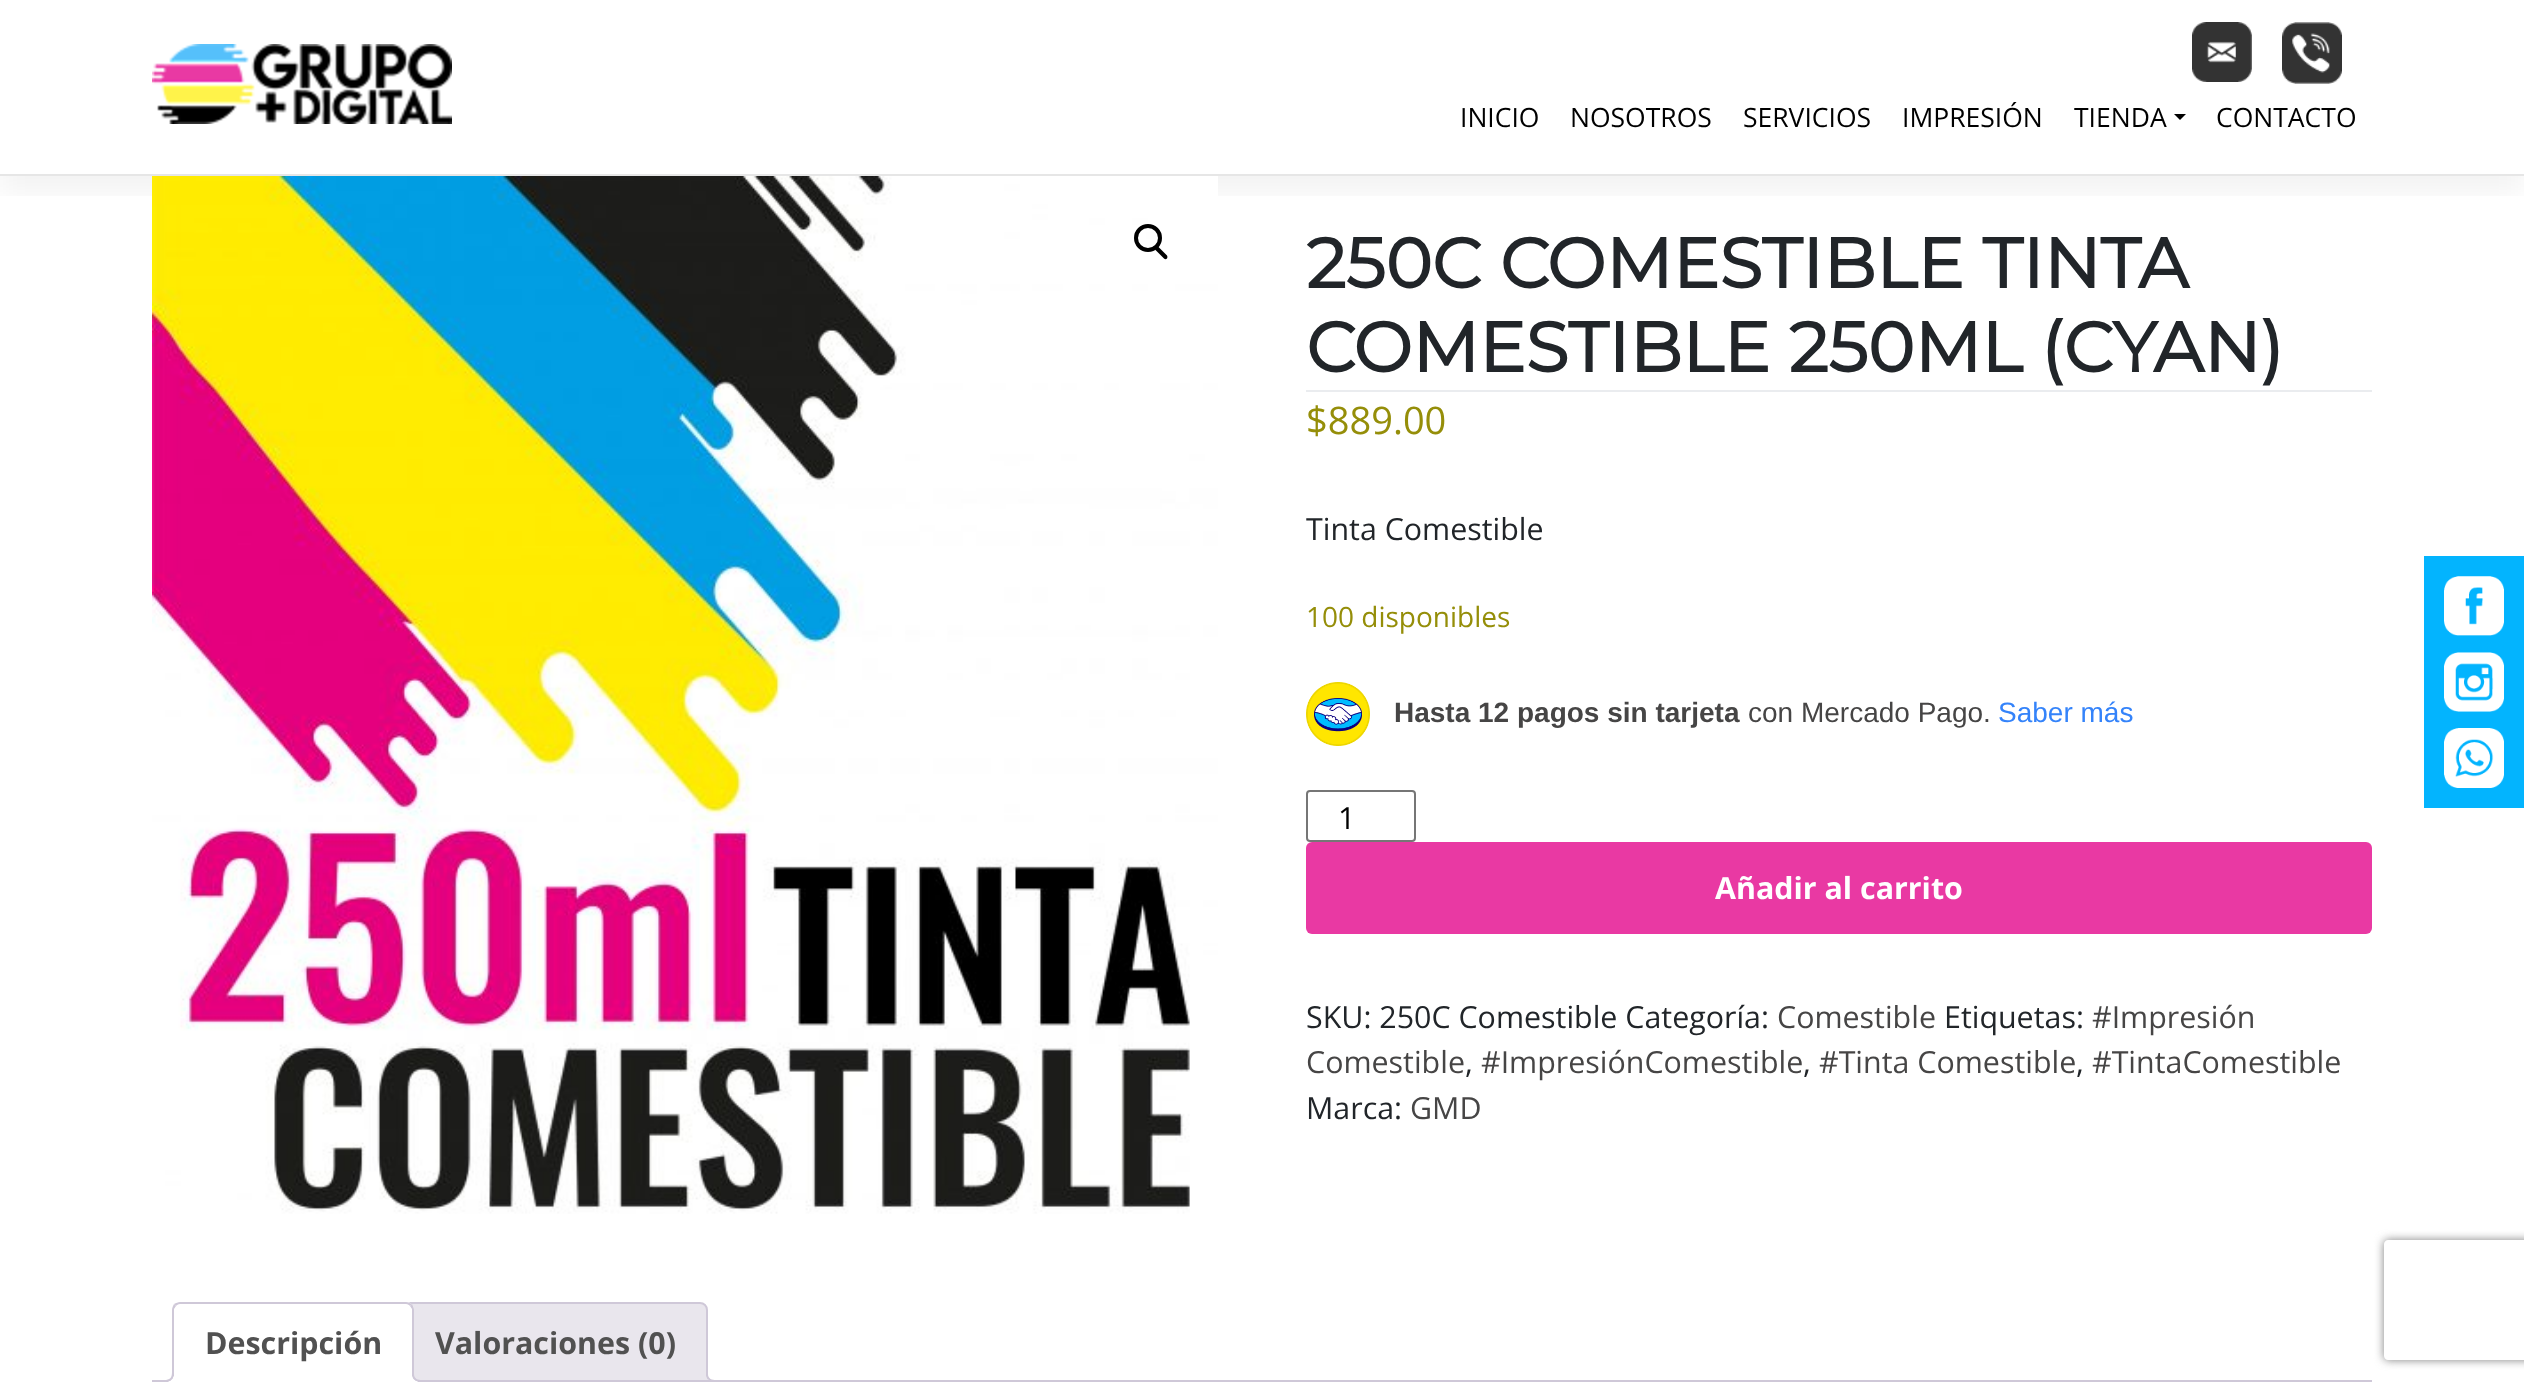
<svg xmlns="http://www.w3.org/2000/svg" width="2524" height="1388">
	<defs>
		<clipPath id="clip1"><rect x="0" y="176" width="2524" height="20" /></clipPath>
		<clipPath id="clip2"><rect x="152" y="1302" width="2220" height="80" /></clipPath>
		<clipPath id="clip3"><path d="M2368 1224H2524V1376H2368ZM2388 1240H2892C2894 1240 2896 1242 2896 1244V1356C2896 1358 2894 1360 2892 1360H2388C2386 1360 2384 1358 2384 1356V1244C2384 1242 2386 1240 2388 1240Z" clip-rule="evenodd" /></clipPath>
	</defs>
	<rect width="100%" height="100%" fill="#FFFFFF" />
	<g clip-path="url(#clip1)">
		<rect x="0" y="16" width="2524" height="176" fill="#000000" fill-opacity="0.05" filter="blur(15px)" />
	</g>
	<rect x="0" y="174" width="2524" height="2" fill="#E6E6E6" />
	<image x="2192" y="22" width="60" height="60" href="assets/img1.png" />
	<image x="2282" y="22" width="60" height="62" href="assets/img2.png" />
	<image x="152" y="44" width="300" height="80" href="assets/img3.png" />
	<g font-family="Open Sans" font-size="26.5" fill="#000000">
		<text x="1460" y="127">INICIO</text>
		<text x="1570" y="127">NOSOTROS</text>
		<text x="1743" y="127">SERVICIOS</text>
		<text x="1902" y="127">IMPRESIÓN</text>
		<text x="2074" y="127">TIENDA</text>
	</g>
	<path d="M2174 114H2186L2180 120Z" fill="#000000" />
	<text x="2216" y="127" font-family="Open Sans" font-size="26.5" fill="#000000">CONTACTO</text>
	<image x="152" y="176" width="1066" height="1038" href="assets/img4.png" />
	<circle cx="1148" cy="238" r="12" fill="none" stroke="#000000" stroke-width="4" />
	<path d="M1155.5 247C1156.5 246.5 1157.5 246.5 1158.5 247L1167 255.5C1167.5 256.5 1167.5 257.5 1167 258.5C1166 259.5 1165 259.5 1164 258.5L1155.5 250C1155 249 1155 248 1155.5 247Z" fill="#000000" />
	<rect x="1306" y="390" width="1066" height="2" fill="#EAECEF" />
	<g font-family="Montserrat" font-size="70" font-weight="700" fill="#212529">
		<text x="1306" y="288">250C COMESTIBLE TINTA</text>
		<text x="1306" y="372">COMESTIBLE 250ML (CYAN)</text>
	</g>
	<text x="1306" y="434" font-family="Open Sans" font-size="38" fill="#958E09">$889.00</text>
	<text x="1306" y="540" font-family="Open Sans" font-size="30.4" fill="#212529">Tinta Comestible</text>
	<text x="1306" y="627" font-family="Open Sans" font-size="28" fill="#958E09">100 disponibles</text>
	<image x="1306" y="682" width="64" height="64" href="assets/img5.png" />
	<text x="1394" y="722" font-family="Liberation Sans" font-size="28" font-weight="700" fill="#464545">Hasta 12 pagos sin tarjeta</text>
	<text x="1748" y="722" font-family="Liberation Sans" font-size="28" fill="#464545">con Mercado Pago.</text>
	<text x="1998" y="722" font-family="Liberation Sans" font-size="28" fill="#3483FA">Saber más</text>
	<rect x="1307" y="791" width="108" height="50" rx="3" fill="none" stroke="#767676" stroke-width="2" />
	<text x="1338" y="829" font-family="Open Sans" font-size="30.4" fill="#000000">1</text>
	<rect x="1306" y="842" width="1066" height="92" rx="6" fill="#E939A3" />
	<text x="1715" y="899" font-family="Open Sans" font-size="30.4" font-weight="700" fill="#FFFFFF">Añadir al carrito</text>
	<text x="1306" y="1028" font-family="Open Sans" font-size="30.4" fill="#212529">SKU: 250C Comestible Categoría:</text>
	<text x="1777" y="1028" font-family="Open Sans" font-size="30.4" fill="#464545">Comestible</text>
	<text x="1944" y="1028" font-family="Open Sans" font-size="30.4" fill="#212529">Etiquetas:</text>
	<g font-family="Open Sans" font-size="30.4" fill="#464545">
		<text x="2092" y="1028">#Impresión</text>
		<text x="1306" y="1073">Comestible</text>
	</g>
	<text x="1465" y="1073" font-family="Open Sans" font-size="30.4" fill="#212529">,</text>
	<text x="1481" y="1073" font-family="Open Sans" font-size="30.4" fill="#464545">#ImpresiónComestible</text>
	<text x="1803" y="1073" font-family="Open Sans" font-size="30.4" fill="#212529">,</text>
	<text x="1819" y="1073" font-family="Open Sans" font-size="30.4" fill="#464545">#Tinta Comestible</text>
	<text x="2076" y="1073" font-family="Open Sans" font-size="30.4" fill="#212529">,</text>
	<text x="2092" y="1073" font-family="Open Sans" font-size="30.4" fill="#464545">#TintaComestible</text>
	<text x="1306" y="1119" font-family="Open Sans" font-size="30.4" fill="#212529">Marca:</text>
	<text x="1410" y="1119" font-family="Open Sans" font-size="30.4" fill="#464545">GMD</text>
	<path d="M410 1303H700C704 1303 707 1306 707 1310V1381H403V1310C403 1306 406 1303 410 1303Z" fill="#E9E6ED" stroke="#CFC8D8" stroke-width="2" />
	<g clip-path="url(#clip2)">
		<path d="M702 1376C702 1383 705 1386 712 1386V1381.5C709 1381 707 1379 706.5 1376Z" fill="#E9E6ED" />
	</g>
	<path d="M706 1372H716V1382C711 1382 706 1380 706 1374ZM708 1372H716V1380C712 1380 708 1379 708 1374Z" fill="#CFC8D8" fill-rule="evenodd" />
	<rect x="152" y="1380" width="2220" height="2" fill="#CFC8D8" />
	<path d="M180 1302H406C410.5 1302 414 1305.5 414 1310V1382H172V1310C172 1305.5 175.5 1302 180 1302Z" fill="#FFFFFF" />
	<path d="M180 1302C178 1302 176 1303 174 1304L176 1306C177 1305 178 1304 180 1304H406C408 1304 409 1305 410 1306L412 1304C410 1303 408 1302 406 1302Z" fill="#CFC8D8" />
	<path d="M414 1382V1310C414 1308 413 1306 412 1304L410 1306L412 1309V1380Z" fill="#CFC8D8" />
	<path d="M414 1382L412 1380H174L172 1382Z" fill="#FFFFFF" />
	<path d="M172 1382L174 1380V1309L176 1306L174 1304C173 1306 172 1308 172 1310Z" fill="#CFC8D8" />
	<text x="205" y="1354" font-family="Open Sans" font-size="30.4" font-weight="700" fill="#515151">Descripción</text>
	<g clip-path="url(#clip2)">
		<path d="M168 1381.5V1386C175 1386 178 1383 178 1376H173.5C173 1379 171 1381 168 1381.5Z" fill="#FFFFFF" />
	</g>
	<path d="M164 1372H174C174 1379 171 1382 164 1382ZM164 1372H172C172 1378 170 1380 164 1380Z" fill="#CFC8D8" fill-rule="evenodd" />
	<g clip-path="url(#clip2)">
		<path d="M408 1376C408 1383 411 1386 418 1386V1381.5C415 1381 413 1379 412.5 1376Z" fill="#FFFFFF" />
	</g>
	<path d="M412 1372H422V1382C417 1382 412 1380 412 1374ZM414 1372H422V1380C418 1380 414 1379 414 1374Z" fill="#CFC8D8" fill-rule="evenodd" />
	<text x="435" y="1354" font-family="Open Sans" font-size="30.4" font-weight="700" fill="#515151">Valoraciones (0)</text>
	<rect x="2424" y="556" width="100" height="252" fill="#03B4FE" />
	<image x="2444" y="576" width="60" height="60" href="assets/img6.png" />
	<image x="2444" y="652" width="60" height="60" href="assets/img7.png" />
	<image x="2444" y="728" width="60" height="60" href="assets/img8.png" />
	<g clip-path="url(#clip3)">
		<rect x="2384" y="1240" width="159" height="120" rx="4" fill="#808080" filter="blur(5px)" />
	</g>
</svg>
